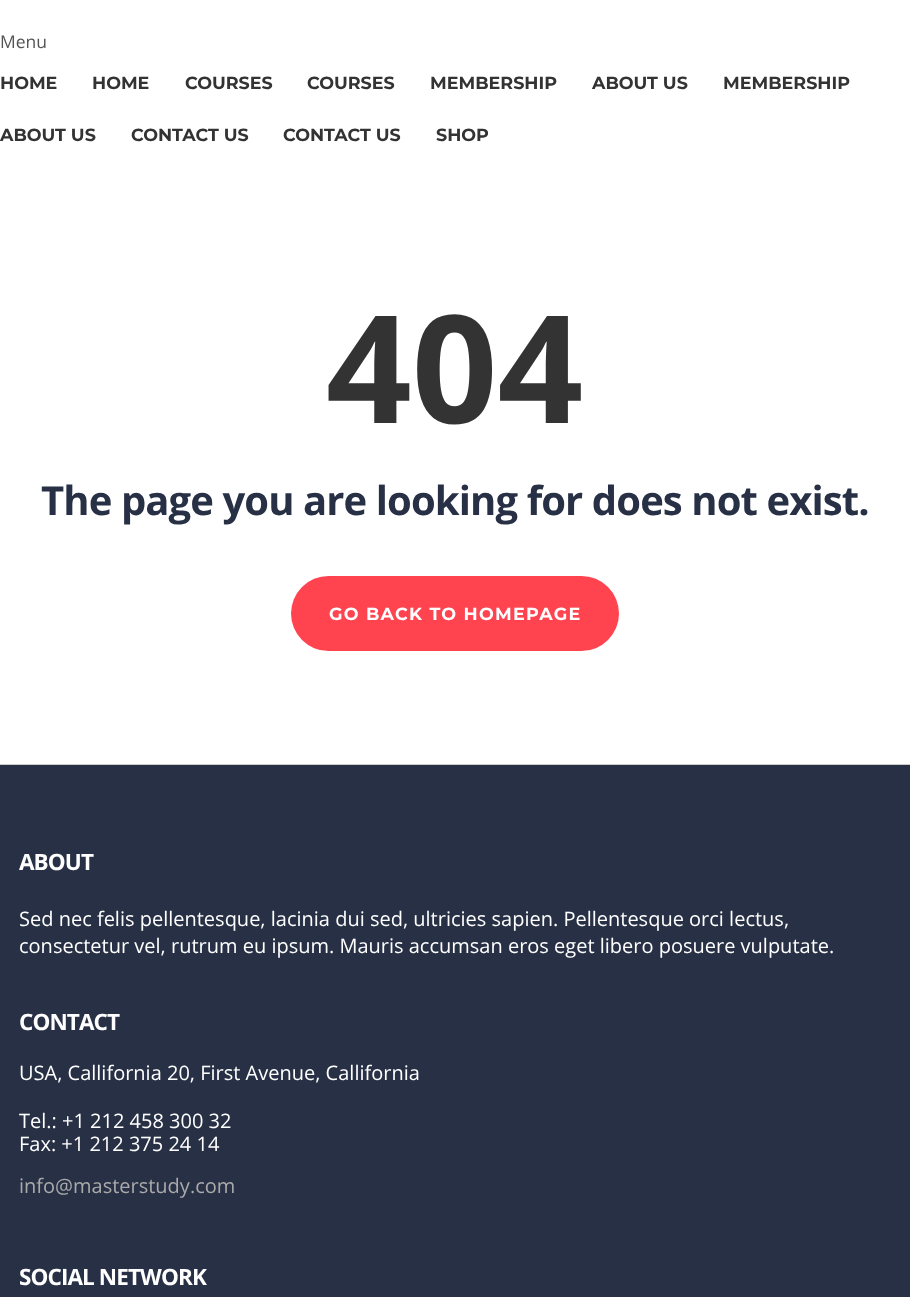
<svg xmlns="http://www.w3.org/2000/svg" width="910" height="1297">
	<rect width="100%" height="100%" fill="#FFFFFF" />
	<text x="0" y="48" font-family="Open Sans" font-size="17.5" fill="#555555">Menu</text>
	<g font-family="Montserrat" font-size="17.5" font-weight="700" fill="#333333">
		<text x="0" y="89">HOME</text>
		<text x="92" y="89">HOME</text>
		<text x="185" y="89">COURSES</text>
		<text x="307" y="89">COURSES</text>
		<text x="430" y="89">MEMBERSHIP</text>
		<text x="592" y="89">ABOUT US</text>
		<text x="723" y="89">MEMBERSHIP</text>
		<text x="0" y="141">ABOUT US</text>
		<text x="131" y="141">CONTACT US</text>
		<text x="283" y="141">CONTACT US</text>
		<text x="436" y="141">SHOP</text>
	</g>
	<text x="326" y="423" font-family="Open Sans" font-size="150" font-weight="700" fill="#333333">404</text>
	<text x="41" y="515" font-family="Open Sans" font-size="40" font-weight="700" letter-spacing="-0.9" fill="#273044">The page you are looking for does not exist.</text>
	<rect x="291" y="576" width="328" height="75" rx="37.5" fill="#FF4450" />
	<text x="329" y="620" font-family="Montserrat" font-size="17.5" font-weight="700" letter-spacing="1.25" fill="#FFFFFF">GO BACK TO HOMEPAGE</text>
	<rect x="0" y="765" width="910" height="532" fill="#273044" />
	<rect x="0" y="764" width="910" height="1" fill="#CCCCCC" />
	<text x="19" y="870" font-family="Open Sans" font-size="22.5" font-weight="700" letter-spacing="-0.9" fill="#FFFFFF">ABOUT</text>
	<g font-family="Open Sans" font-size="20" fill="#FFFFFF">
		<text x="19" y="926">Sed nec felis pellentesque, lacinia dui sed, ultricies sapien. Pellentesque orci lectus,</text>
		<text x="19" y="953">consectetur vel, rutrum eu ipsum. Mauris accumsan eros eget libero posuere vulputate.</text>
	</g>
	<text x="19" y="1030" font-family="Open Sans" font-size="22.5" font-weight="700" letter-spacing="-0.9" fill="#FFFFFF">CONTACT</text>
	<g font-family="Open Sans" font-size="20" fill="#FFFFFF">
		<text x="19" y="1080">USA, Callifornia 20, First Avenue, Callifornia</text>
		<text x="19" y="1128">Tel.: +1 212 458 300 32</text>
		<text x="19" y="1151">Fax: +1 212 375 24 14</text>
	</g>
	<text x="19" y="1193" font-family="Open Sans" font-size="20" fill="#AAAAAA">info@masterstudy.com</text>
	<text x="19" y="1285" font-family="Open Sans" font-size="22.5" font-weight="700" letter-spacing="-0.9" fill="#FFFFFF">SOCIAL NETWORK</text>
</svg>
